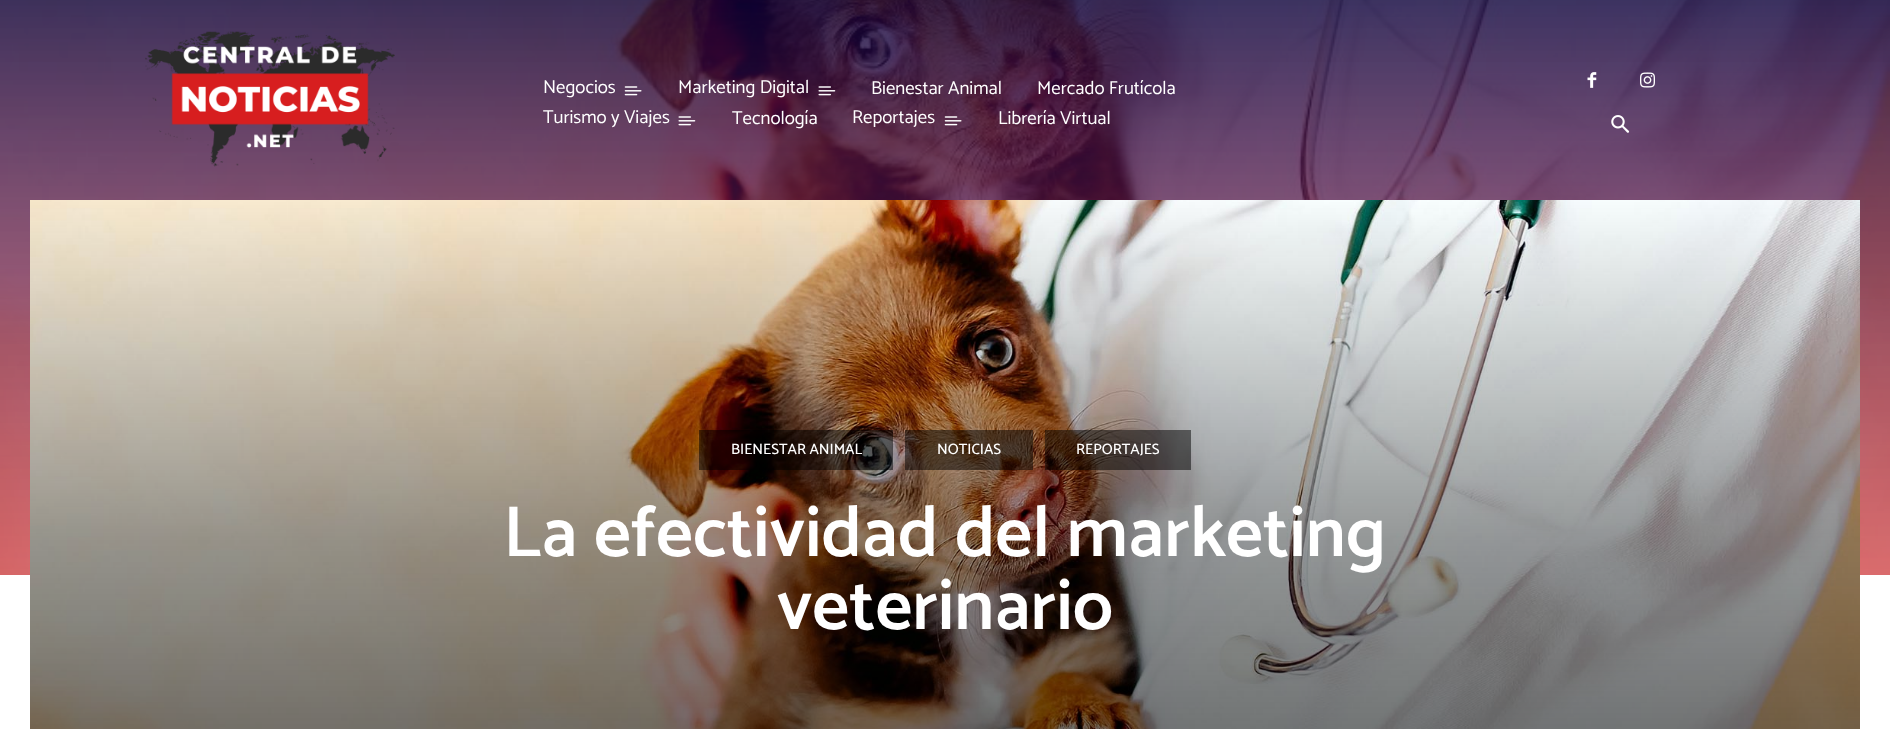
<svg xmlns="http://www.w3.org/2000/svg" width="1890" height="729">
	<rect width="100%" height="100%" fill="#FFFFFF" />
	<image x="0" y="0" width="1890" height="575" href="assets/img9.png" />
	<image x="145" y="31" width="250" height="136" href="assets/img1.png" />
	<text x="543" y="93" font-family="Catamaran" font-size="18.75" fill="#FFFFFF">Negocios</text>
	<image x="624" y="86" width="18" height="10" href="assets/img2.png" />
	<text x="678" y="93" font-family="Catamaran" font-size="18.75" fill="#FFFFFF">Marketing Digital</text>
	<image x="818" y="86" width="18" height="10" href="assets/img3.png" />
	<g font-family="Catamaran" font-size="18.75" fill="#FFFFFF">
		<text x="871" y="94">Bienestar Animal</text>
		<text x="1037" y="94">Mercado Frutícola</text>
		<text x="543" y="123">Turismo y Viajes</text>
	</g>
	<image x="678" y="116" width="18" height="10" href="assets/img4.png" />
	<g font-family="Catamaran" font-size="18.75" fill="#FFFFFF">
		<text x="732" y="124">Tecnología</text>
		<text x="852" y="123">Reportajes</text>
	</g>
	<image x="944" y="116" width="18" height="10" href="assets/img5.png" />
	<text x="998" y="124" font-family="Catamaran" font-size="18.75" fill="#FFFFFF">Librería Virtual</text>
	<image x="1587" y="72" width="10" height="16" href="assets/img6.png" />
	<image x="1640" y="72" width="15" height="16" href="assets/img7.png" />
	<image x="1611" y="115" width="19" height="18" href="assets/img8.png" />
	<image x="30" y="200" width="1830" height="529" href="assets/img10.png" />
	<rect x="699" y="430" width="194" height="40" fill="#000000" fill-opacity="0.5" />
	<text x="731" y="454" font-family="Catamaran" font-size="15" font-weight="500" fill="#FFFFFF">BIENESTAR ANIMAL</text>
	<rect x="905" y="430" width="128" height="40" fill="#000000" fill-opacity="0.5" />
	<text x="937" y="454" font-family="Catamaran" font-size="15" font-weight="500" fill="#FFFFFF">NOTICIAS</text>
	<rect x="1045" y="430" width="146" height="40" fill="#000000" fill-opacity="0.5" />
	<text x="1076" y="454" font-family="Catamaran" font-size="15" font-weight="500" fill="#FFFFFF">REPORTAJES</text>
	<g font-family="Catamaran" font-size="72.5" font-weight="600" fill="#FFFFFF">
		<text x="503" y="556">La efectividad del marketing</text>
		<text x="777" y="629">veterinario</text>
	</g>
</svg>
